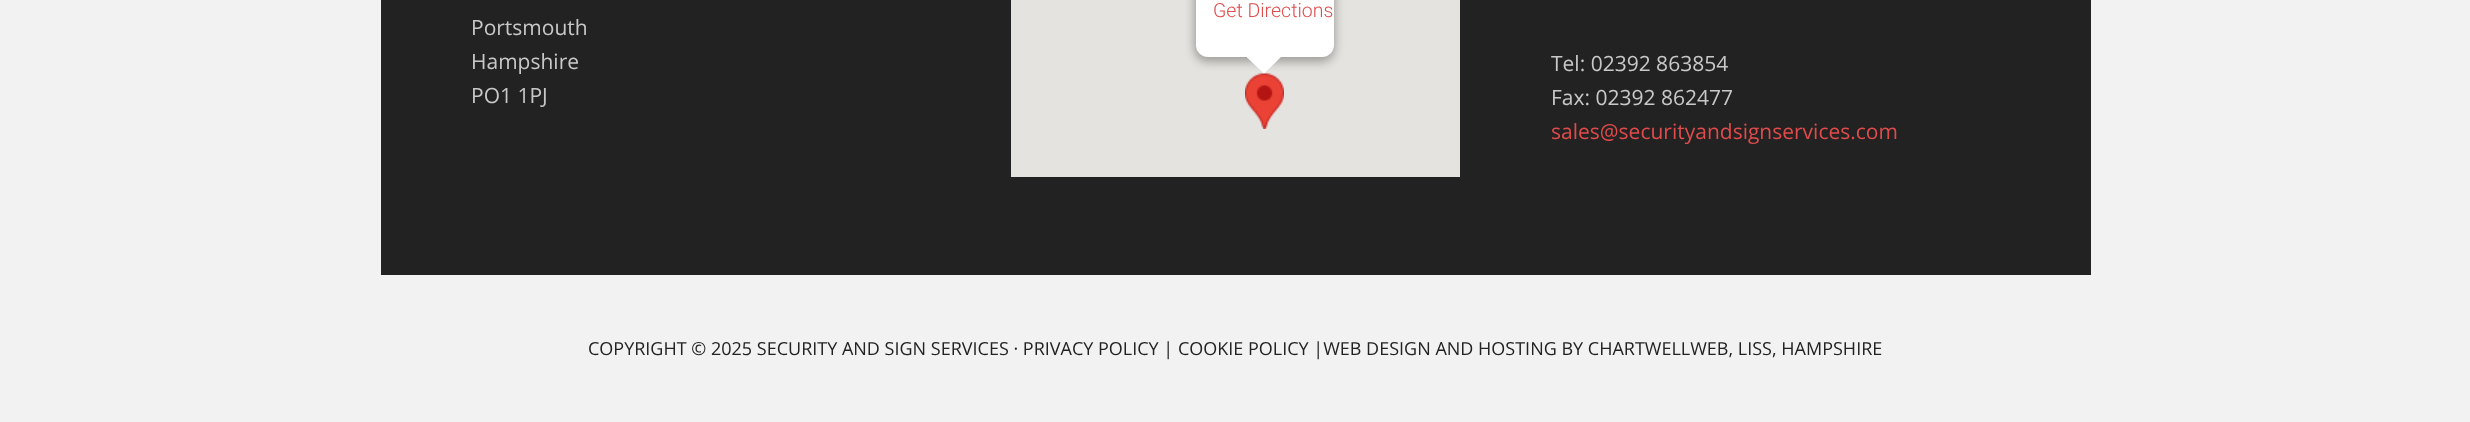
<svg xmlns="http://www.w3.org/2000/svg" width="2470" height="422">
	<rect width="100%" height="100%" fill="#F2F2F2" />
	<rect x="381" y="0" width="1710" height="275" fill="#222222" />
	<rect x="1011" y="0" width="449" height="177" fill="#E5E3DF" />
	<image x="1245" y="73" width="39" height="56" href="assets/img1.png" />
	<rect x="1194" y="-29" width="141" height="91" rx="14" fill="#000000" fill-opacity="0.3" filter="blur(5px)" />
	<rect x="1196" y="-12" width="138" height="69" rx="12" fill="#FFFFFF" />
	<text x="1213" y="17" font-family="Roboto" font-size="19.5" font-weight="300" fill="#E04B4B">Get Directions</text>
	<path d="M1247 56V57.5L1264 73.5L1282 56Z" fill="#FFFFFF" />
	<g font-family="Open Sans" font-size="21" fill="#C8C8C8">
		<text x="471" y="35">Portsmouth</text>
		<text x="471" y="69">Hampshire</text>
		<text x="471" y="103">PO1 1PJ</text>
		<text x="1551" y="71">Tel: 02392 863854</text>
		<text x="1551" y="105">Fax: 02392 862477</text>
	</g>
	<text x="1551" y="139" font-family="Open Sans" font-size="21" fill="#E04B4B">sales@securityandsignservices.com</text>
	<text x="588" y="355" font-family="Open Sans" font-size="18" fill="#222222">COPYRIGHT © 2025 SECURITY AND SIGN SERVICES · PRIVACY POLICY | COOKIE POLICY |WEB DESIGN AND HOSTING BY CHARTWELLWEB, LISS, HAMPSHIRE</text>
</svg>
